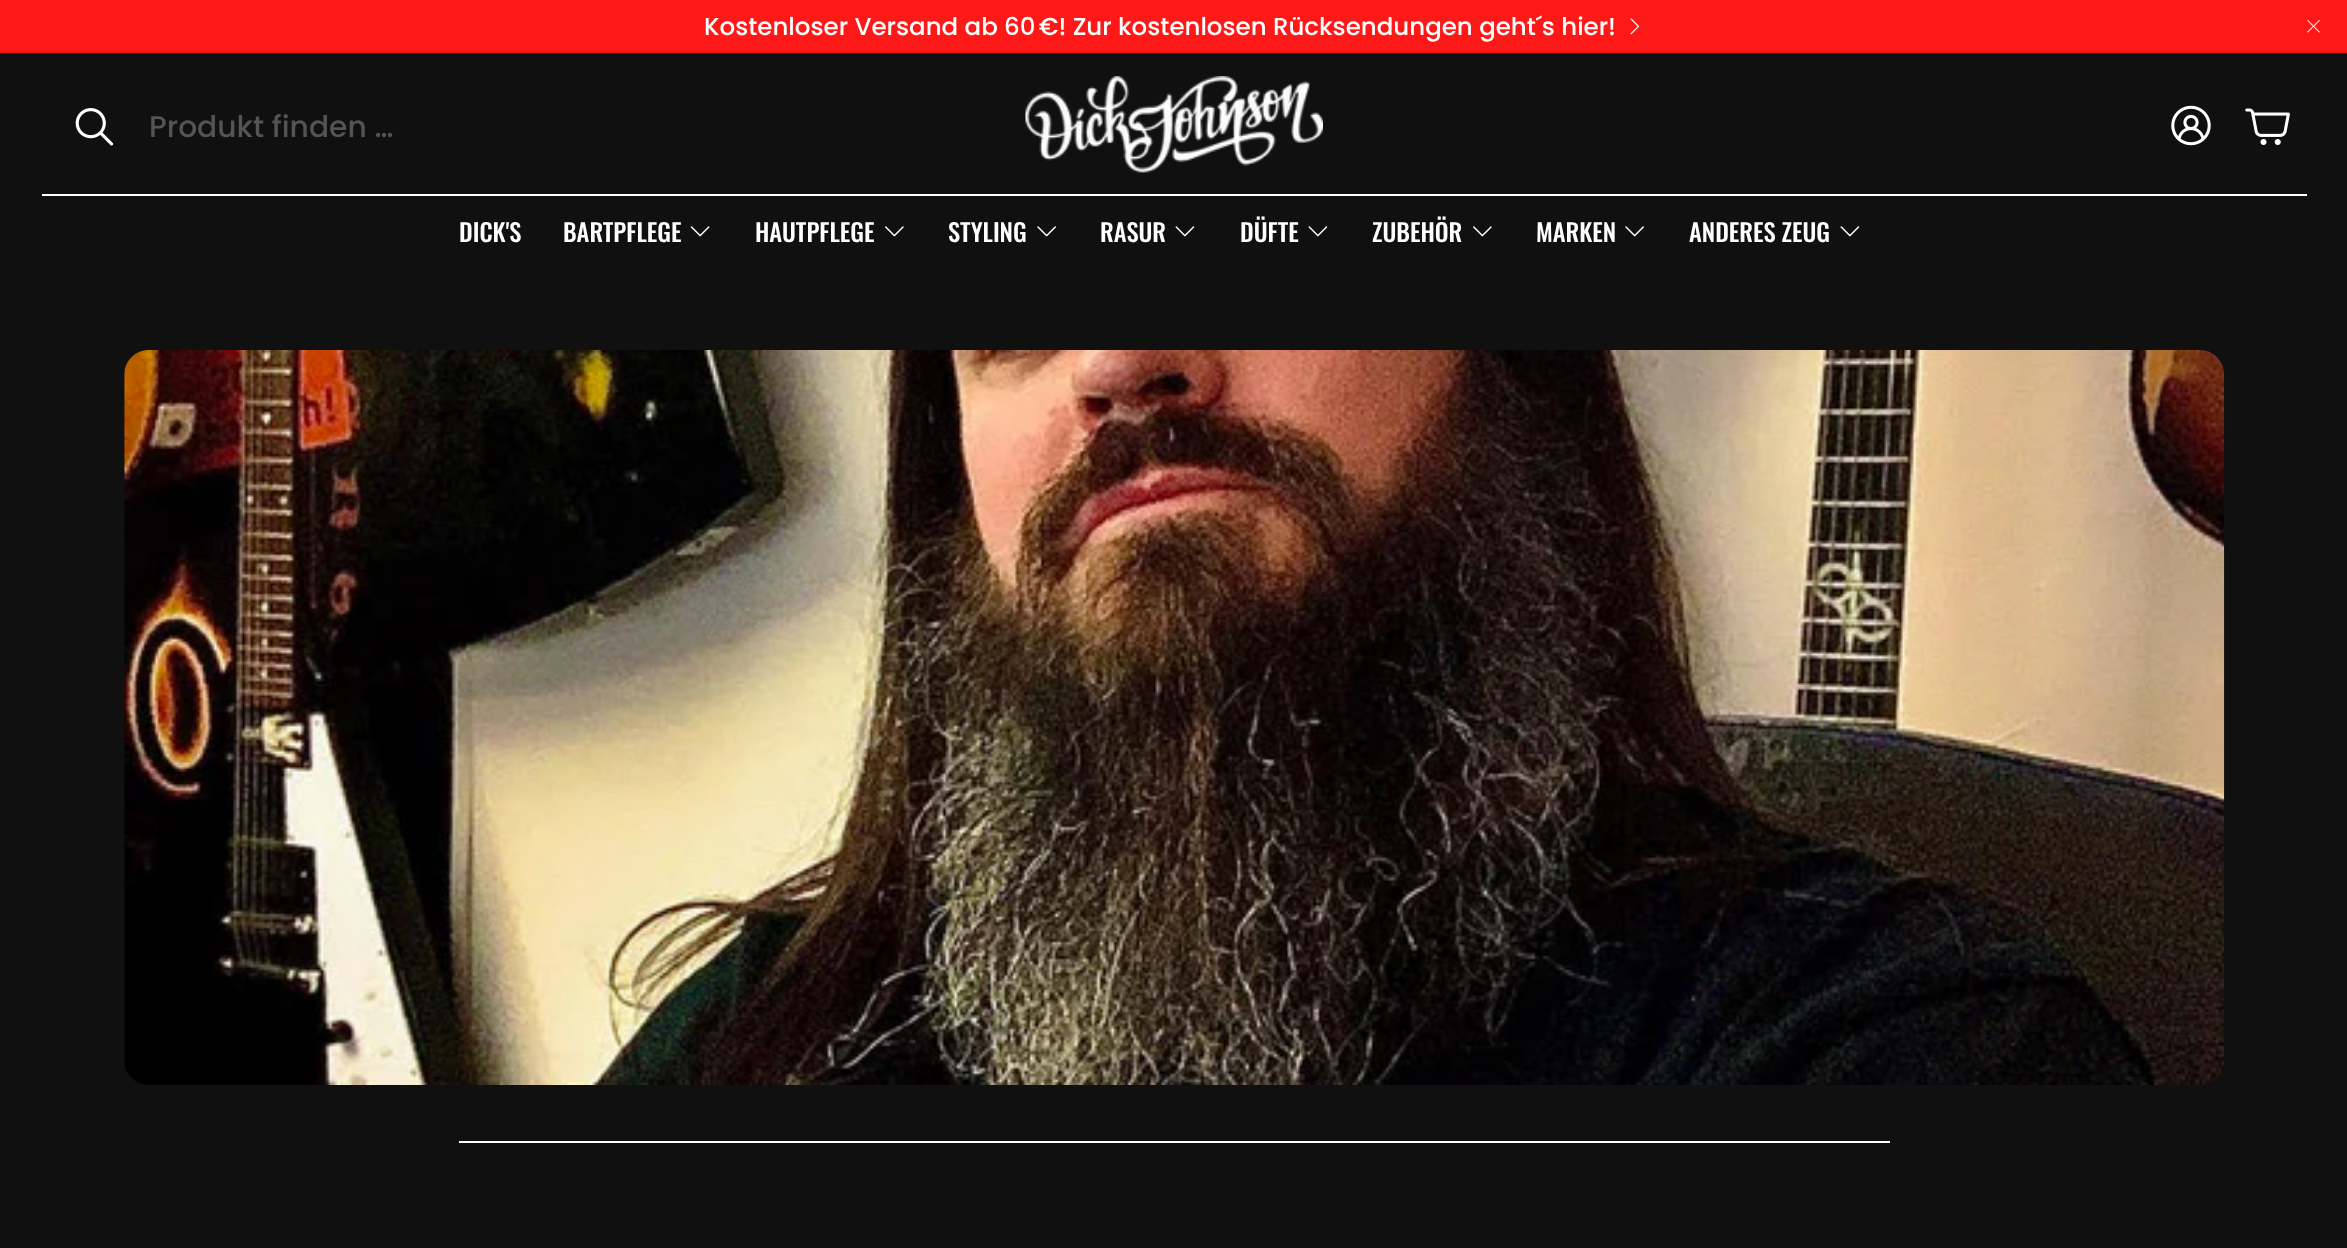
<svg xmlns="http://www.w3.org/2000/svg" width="2347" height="1248">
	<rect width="100%" height="100%" fill="#101010" />
	<rect x="0" y="0" width="2347" height="53" fill="#FF1818" />
	<text x="704" y="35" font-family="Poppins" font-size="24.5" font-weight="500" fill="#FFFFFF">Kostenloser Versand ab 60 €! Zur kostenlosen Rücksendungen geht´s hier!</text>
	<image x="1630" y="18" width="10" height="17" href="assets/img1.png" />
	<image x="2307" y="20" width="13" height="13" href="assets/img2.png" />
	<image x="75" y="108" width="39" height="38" href="assets/img3.png" />
	<text x="149" y="137" font-family="Poppins" font-size="29.75" font-weight="500" fill="#545454">Produkt finden …</text>
	<image x="1025" y="76" width="298" height="97" href="assets/img4.png" />
	<image x="2171" y="105" width="40" height="41" href="assets/img5.png" />
	<image x="2245" y="108" width="45" height="37" href="assets/img6.png" />
	<rect x="42" y="194" width="2265" height="2" fill="#FFFFFF" />
	<g font-family="Oswald" font-size="24.5" font-weight="500" fill="#FFFFFF">
		<text x="459" y="242">DICK'S</text>
		<text x="563" y="242">BARTPFLEGE</text>
	</g>
	<image x="690" y="226" width="20" height="11" href="assets/img7.png" />
	<text x="755" y="242" font-family="Oswald" font-size="24.5" font-weight="500" fill="#FFFFFF">HAUTPFLEGE</text>
	<image x="885" y="226" width="19" height="11" href="assets/img8.png" />
	<text x="948" y="242" font-family="Oswald" font-size="24.5" font-weight="500" fill="#FFFFFF">STYLING</text>
	<image x="1037" y="226" width="19" height="11" href="assets/img9.png" />
	<text x="1100" y="242" font-family="Oswald" font-size="24.5" font-weight="500" fill="#FFFFFF">RASUR</text>
	<image x="1175" y="226" width="20" height="11" href="assets/img10.png" />
	<text x="1240" y="242" font-family="Oswald" font-size="24.5" font-weight="500" fill="#FFFFFF">DÜFTE</text>
	<image x="1308" y="226" width="20" height="11" href="assets/img10.png" />
	<text x="1372" y="242" font-family="Oswald" font-size="24.5" font-weight="500" fill="#FFFFFF">ZUBEHÖR</text>
	<image x="1473" y="226" width="19" height="11" href="assets/img8.png" />
	<text x="1536" y="242" font-family="Oswald" font-size="24.5" font-weight="500" fill="#FFFFFF">MARKEN</text>
	<image x="1625" y="226" width="19" height="11" href="assets/img9.png" />
	<text x="1689" y="242" font-family="Oswald" font-size="24.5" font-weight="500" fill="#FFFFFF">ANDERES ZEUG</text>
	<image x="1840" y="226" width="20" height="11" href="assets/img10.png" />
	<image x="124" y="350" width="2101" height="735" href="assets/img11.png" />
	<rect x="459" y="1141" width="1431" height="2" fill="#FFFFFF" />
</svg>
